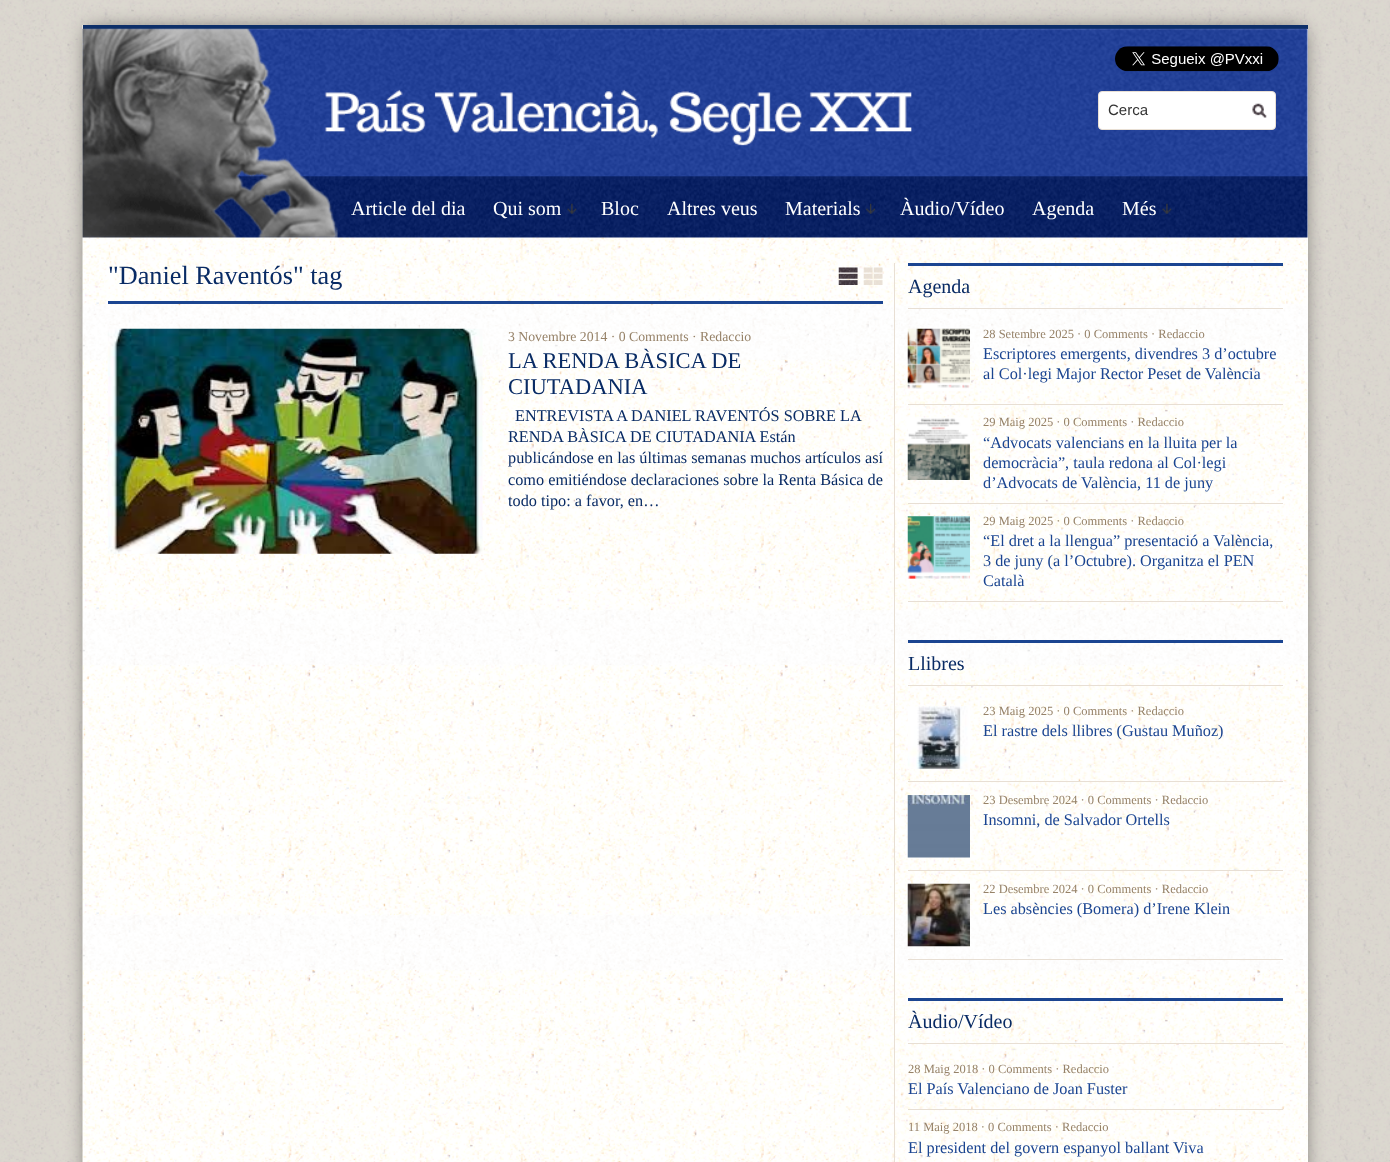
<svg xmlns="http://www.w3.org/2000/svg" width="1390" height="1162">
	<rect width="100%" height="100%" fill="#FFFFFF" />
	<image x="0" y="0" width="1390" height="1162" href="assets/img1.png" />
	<rect x="88" y="30" width="1215" height="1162" fill="#000000" fill-opacity="0.6" filter="blur(10px)" />
	<rect x="1307" y="29" width="1" height="1133" fill="#FFFFFF" />
	<image x="82" y="25" width="1226" height="1137" href="assets/img2.png" />
	<rect x="83" y="25" width="1225" height="4" fill="#0D2F69" />
	<image x="82" y="28" width="1226" height="210" href="assets/img3.png" />
	<image x="1115" y="46" width="164" height="26" href="assets/img4.png" />
	<rect x="1098.5" y="91.5" width="177" height="38" rx="3.5" fill="#FFFFFF" stroke="#E8DFD4" />
	<text x="1108" y="115" font-family="Liberation Sans" font-size="15" fill="#333333">Cerca</text>
	<image x="1252" y="103" width="15" height="15" href="assets/img5.png" />
	<text x="351" y="215" font-family="Liberation Serif" font-size="20" fill="#FFFFFF">Article del dia</text>
	<image x="567" y="203" width="10" height="11" href="assets/img6.png" />
	<g font-family="Liberation Serif" font-size="20" fill="#FFFFFF">
		<text x="493" y="215">Qui som</text>
		<text x="601" y="215">Bloc</text>
		<text x="667" y="215">Altres veus</text>
	</g>
	<image x="866" y="203" width="9" height="11" href="assets/img7.png" />
	<g font-family="Liberation Serif" font-size="20" fill="#FFFFFF">
		<text x="785" y="215">Materials</text>
		<text x="900" y="215">Àudio/Vídeo</text>
		<text x="1032" y="215">Agenda</text>
	</g>
	<image x="1162" y="203" width="10" height="11" href="assets/img8.png" />
	<text x="1122" y="215" font-family="Liberation Serif" font-size="20" fill="#FFFFFF">Més</text>
	<rect x="108" y="301" width="775" height="3" fill="#1B4591" />
	<text x="108" y="284" font-family="Liberation Serif" font-size="26.25" fill="#092B64">"Daniel Raventós" tag</text>
	<image x="838" y="267" width="45" height="18" href="assets/img9.png" />
	<image x="107" y="328" width="376" height="226" href="assets/img10.png" />
	<text x="508" y="341" font-family="Liberation Serif" font-size="13.75" fill="#968268">3 Novembre 2014 · 0 Comments · Redaccio</text>
	<g font-family="Liberation Serif" font-size="22.5" fill="#092B64">
		<text x="508" y="368">LA RENDA BÀSICA DE</text>
		<text x="508" y="394">CIUTADANIA</text>
	</g>
	<g font-family="Liberation Serif" font-size="16.25" fill="#092B64">
		<text x="515" y="421">ENTREVISTA A DANIEL RAVENTÓS SOBRE LA</text>
		<text x="508" y="442">RENDA BÀSICA DE CIUTADANIA Están</text>
		<text x="508" y="463">publicándose en las últimas semanas muchos artículos así</text>
		<text x="508" y="485">como emitiéndose declaraciones sobre la Renta Básica de</text>
		<text x="508" y="506">todo tipo: a favor, en…</text>
	</g>
	<rect x="894" y="263" width="1" height="899" fill="#E8DFD4" />
	<rect x="908" y="263" width="375" height="3" fill="#1B4591" />
	<rect x="908" y="308" width="375" height="1" fill="#E8DFD4" />
	<text x="908" y="293" font-family="Liberation Serif" font-size="20" fill="#092B64">Agenda</text>
	<rect x="908" y="404" width="375" height="1" fill="#E8DFD4" />
	<image x="907" y="328" width="63" height="64" href="assets/img11.png" />
	<text x="983" y="338" font-family="Liberation Serif" font-size="12.5" fill="#968268">28 Setembre 2025 · 0 Comments · Redaccio</text>
	<g font-family="Liberation Serif" font-size="16.25" fill="#1B4591">
		<text x="983" y="359">Escriptores emergents, divendres 3 d’octubre</text>
		<text x="983" y="379">al Col·legi Major Rector Peset de València</text>
	</g>
	<rect x="908" y="503" width="375" height="1" fill="#E8DFD4" />
	<image x="907" y="417" width="63" height="63" href="assets/img12.png" />
	<text x="983" y="426" font-family="Liberation Serif" font-size="12.5" fill="#968268">29 Maig 2025 · 0 Comments · Redaccio</text>
	<g font-family="Liberation Serif" font-size="16.25" fill="#1B4591">
		<text x="983" y="448">“Advocats valencians en la lluita per la</text>
		<text x="983" y="468">democràcia”, taula redona al Col·legi</text>
		<text x="983" y="488">d’Advocats de València, 11 de juny</text>
	</g>
	<rect x="908" y="601" width="375" height="1" fill="#E8DFD4" />
	<image x="907" y="516" width="63" height="63" href="assets/img13.png" />
	<text x="983" y="525" font-family="Liberation Serif" font-size="12.5" fill="#968268">29 Maig 2025 · 0 Comments · Redaccio</text>
	<g font-family="Liberation Serif" font-size="16.25" fill="#1B4591">
		<text x="983" y="546">“El dret a la llengua” presentació a València,</text>
		<text x="983" y="566">3 de juny (a l’Octubre). Organitza el PEN</text>
		<text x="983" y="586">Català</text>
	</g>
	<rect x="908" y="640" width="375" height="3" fill="#1B4591" />
	<rect x="908" y="685" width="375" height="1" fill="#E8DFD4" />
	<text x="908" y="670" font-family="Liberation Serif" font-size="20" fill="#092B64">Llibres</text>
	<rect x="908" y="781" width="375" height="1" fill="#E8DFD4" />
	<image x="907" y="706" width="63" height="63" href="assets/img14.png" />
	<text x="983" y="715" font-family="Liberation Serif" font-size="12.5" fill="#968268">23 Maig 2025 · 0 Comments · Redaccio</text>
	<text x="983" y="736" font-family="Liberation Serif" font-size="16.25" fill="#1B4591">El rastre dels llibres (Gustau Muñoz)</text>
	<rect x="908" y="870" width="375" height="1" fill="#E8DFD4" />
	<image x="907" y="795" width="63" height="63" href="assets/img15.png" />
	<text x="983" y="804" font-family="Liberation Serif" font-size="12.5" fill="#968268">23 Desembre 2024 · 0 Comments · Redaccio</text>
	<text x="983" y="825" font-family="Liberation Serif" font-size="16.25" fill="#1B4591">Insomni, de Salvador Ortells</text>
	<rect x="908" y="959" width="375" height="1" fill="#E8DFD4" />
	<image x="907" y="883" width="63" height="64" href="assets/img16.png" />
	<text x="983" y="893" font-family="Liberation Serif" font-size="12.5" fill="#968268">22 Desembre 2024 · 0 Comments · Redaccio</text>
	<text x="983" y="914" font-family="Liberation Serif" font-size="16.25" fill="#1B4591">Les absències (Bomera) d’Irene Klein</text>
	<rect x="908" y="998" width="375" height="3" fill="#1B4591" />
	<rect x="908" y="1043" width="375" height="1" fill="#E8DFD4" />
	<text x="908" y="1028" font-family="Liberation Serif" font-size="20" fill="#092B64">Àudio/Vídeo</text>
	<rect x="908" y="1109" width="375" height="1" fill="#E8DFD4" />
	<text x="908" y="1073" font-family="Liberation Serif" font-size="12.5" fill="#968268">28 Maig 2018 · 0 Comments · Redaccio</text>
	<text x="908" y="1094" font-family="Liberation Serif" font-size="16.25" fill="#1B4591">El País Valenciano de Joan Fuster</text>
	<text x="908" y="1131" font-family="Liberation Serif" font-size="12.5" fill="#968268">11 Maig 2018 · 0 Comments · Redaccio</text>
	<text x="908" y="1153" font-family="Liberation Serif" font-size="16.25" fill="#1B4591">El president del govern espanyol ballant Viva</text>
</svg>
